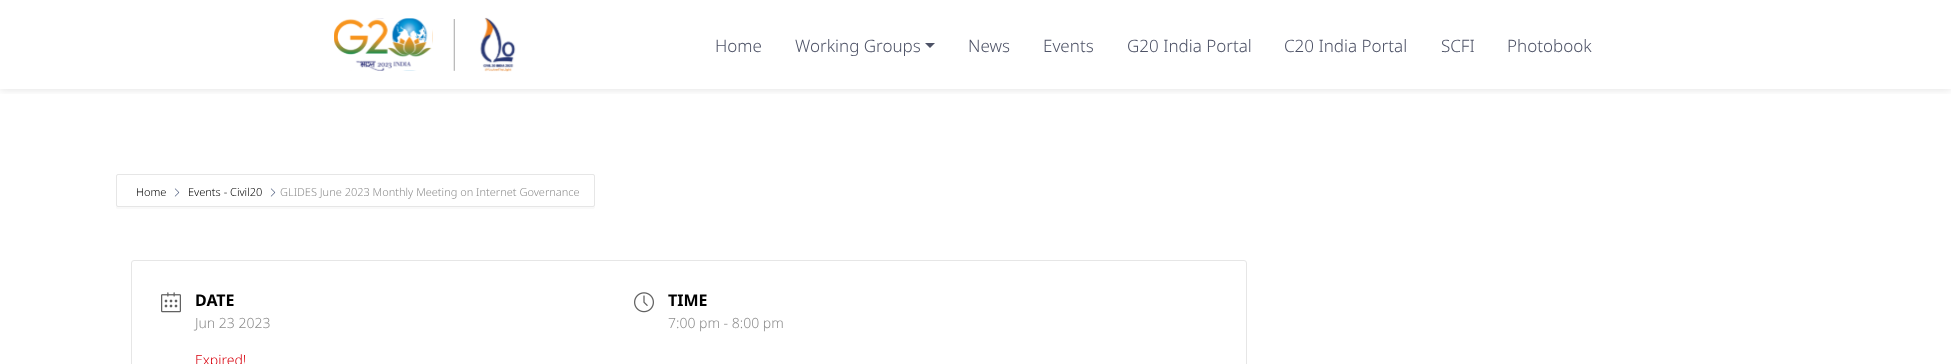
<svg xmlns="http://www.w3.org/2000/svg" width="1951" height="364">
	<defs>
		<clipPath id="clip1"><rect x="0" y="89" width="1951" height="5" /></clipPath>
	</defs>
	<rect width="100%" height="100%" fill="#FFFFFF" />
	<g clip-path="url(#clip1)">
		<rect x="0" y="0" width="1951" height="89" fill="#000000" fill-opacity="0.13" filter="blur(5px)" />
	</g>
	<image x="334" y="17" width="182" height="55" href="assets/img1.png" />
	<g font-family="Noto Sans" font-size="17" font-weight="300" fill="#4D5266">
		<text x="715" y="52">Home</text>
		<text x="795" y="52">Working Groups</text>
	</g>
	<path d="M925 43H935L930 48Z" fill="#4D5266" />
	<g font-family="Noto Sans" font-size="17" font-weight="300" fill="#4D5266">
		<text x="968" y="52">News</text>
		<text x="1043" y="52">Events</text>
		<text x="1127" y="52">G20 India Portal</text>
		<text x="1284" y="52">C20 India Portal</text>
		<text x="1441" y="52">SCFI</text>
		<text x="1507" y="52">Photobook</text>
	</g>
	<path d="M116 205V208L117 209H593C595 209 595 207 595 205C595 206 594 207 593 207H118C117 207 116 206 116 205Z" fill="#F9F9F9" />
	<rect x="116.5" y="174.5" width="478" height="32" rx="1.5" fill="none" stroke="#E6E6E6" />
	<text x="136" y="196" font-family="Noto Sans" font-size="11" font-weight="300" fill="#000000">Home</text>
	<image x="174" y="188" width="6" height="9" href="assets/img2.png" />
	<text x="188" y="196" font-family="Noto Sans" font-size="11" font-weight="300" fill="#000000">Events - Civil20</text>
	<image x="270" y="188" width="6" height="9" href="assets/img2.png" />
	<text x="280" y="196" font-family="Noto Sans" font-size="11" font-weight="300" fill="#8D8D8D">GLIDES June 2023 Monthly Meeting on Internet Governance</text>
	<rect x="131.5" y="260.5" width="1115" height="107" rx="2.5" fill="none" stroke="#E6E6E6" />
	<image x="161" y="292" width="20" height="21" href="assets/img3.png" />
	<text x="195" y="306" font-family="Noto Sans" font-size="16" font-weight="700" fill="#000000">DATE</text>
	<text x="195" y="328" font-family="Noto Sans" font-size="14" font-weight="300" fill="#8D8D8D">Jun 23 2023</text>
	<text x="195" y="365" font-family="Noto Sans" font-size="14" font-weight="300" fill="#D8000C">Expired!</text>
	<image x="634" y="292" width="20" height="21" href="assets/img4.png" />
	<text x="668" y="306" font-family="Noto Sans" font-size="16" font-weight="700" fill="#000000">TIME</text>
	<text x="668" y="328" font-family="Noto Sans" font-size="14" font-weight="300" fill="#8D8D8D">7:00 pm - 8:00 pm</text>
</svg>
